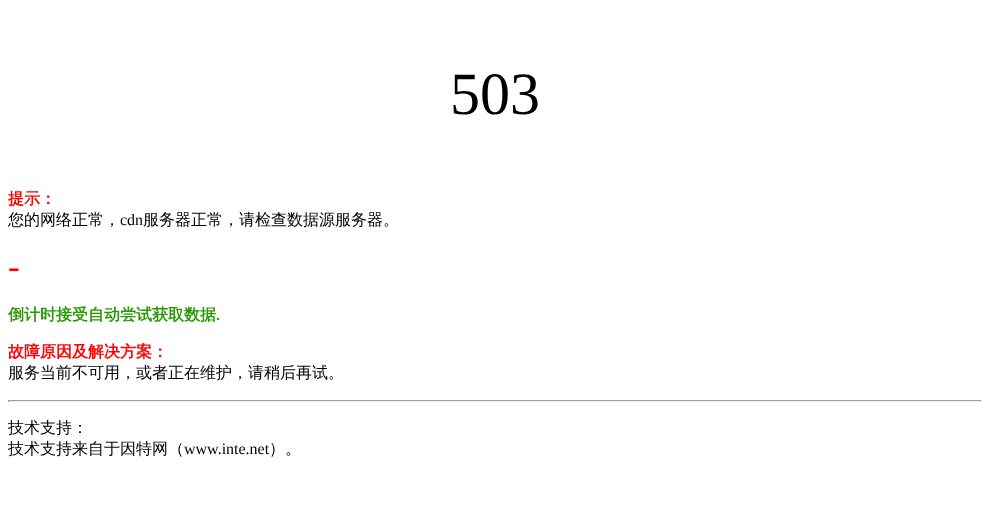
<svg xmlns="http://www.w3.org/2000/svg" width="990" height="505">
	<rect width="100%" height="100%" fill="#FFFFFF" />
	<text x="450" y="114" font-family="Liberation Serif" font-size="60" fill="#000000">503</text>
	<text x="8" y="204" font-family="WenQuanYi Zen Hei" font-size="16" font-weight="700" fill="#FF0000">提示：</text>
	<text x="8" y="225" font-family="WenQuanYi Zen Hei" font-size="16" font-weight="500" fill="#000000">您的网络正常，</text>
	<text x="120" y="225" font-family="Liberation Serif" font-size="16" fill="#000000">cdn</text>
	<text x="143" y="225" font-family="WenQuanYi Zen Hei" font-size="16" font-weight="500" fill="#000000">服务器正常，请检查数据源服务器。</text>
	<text x="8" y="278" font-family="Liberation Serif" font-size="35" fill="#FF0000">-</text>
	<text x="8" y="320" font-family="WenQuanYi Zen Hei" font-size="16" font-weight="700" fill="#289905">倒计时接受自动尝试获取数据</text>
	<text x="216" y="320" font-family="Liberation Serif" font-size="16" font-weight="700" fill="#289905">.</text>
	<text x="8" y="357" font-family="WenQuanYi Zen Hei" font-size="16" font-weight="700" fill="#FF0000">故障原因及解决方案：</text>
	<text x="8" y="378" font-family="WenQuanYi Zen Hei" font-size="16" font-weight="500" fill="#000000">服务当前不可用，或者正在维护，请稍后再试。</text>
	<rect x="8" y="400" width="974" height="1" fill="#9F9F9F" />
	<rect x="981" y="400" width="1" height="2" fill="#EEEEEE" />
	<rect x="8" y="401" width="974" height="1" fill="#EEEEEE" />
	<rect x="8" y="400" width="1" height="2" fill="#9F9F9F" />
	<g font-family="WenQuanYi Zen Hei" font-size="16" font-weight="500" fill="#000000">
		<text x="8" y="433">技术支持：</text>
		<text x="8" y="454">技术支持来自于因特网（</text>
	</g>
	<text x="184" y="454" font-family="Liberation Serif" font-size="16" fill="#000000">www.inte.net</text>
	<text x="269" y="454" font-family="WenQuanYi Zen Hei" font-size="16" font-weight="500" fill="#000000">）。</text>
</svg>
